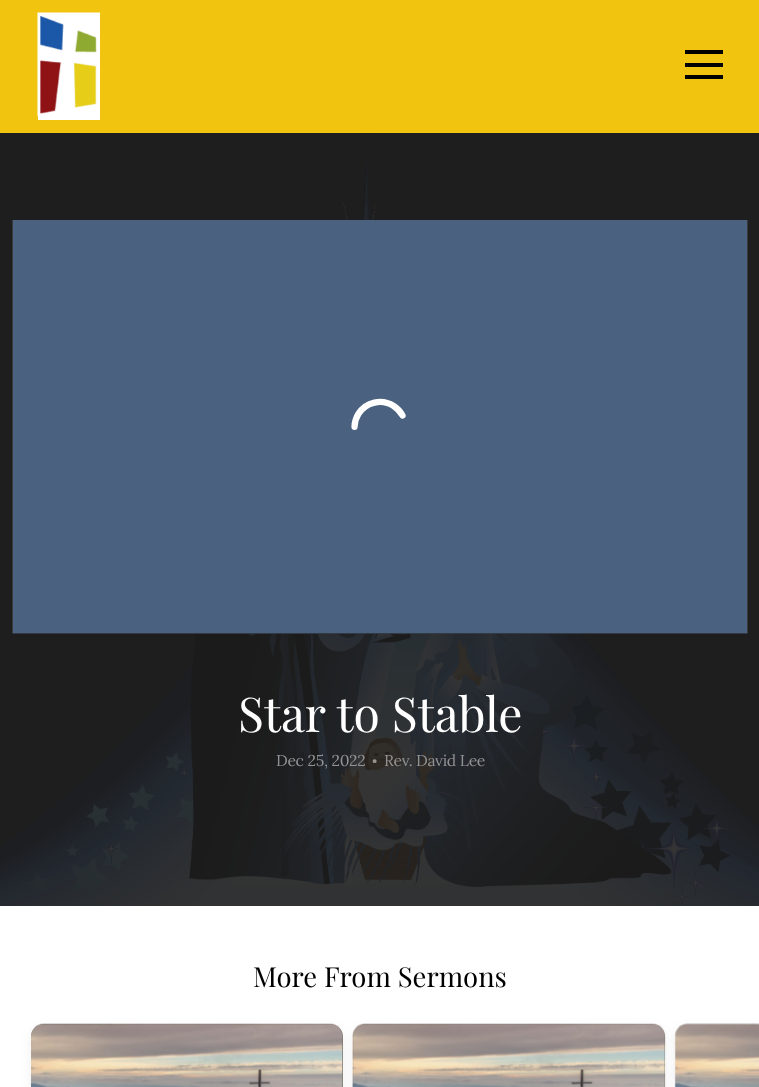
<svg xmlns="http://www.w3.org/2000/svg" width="759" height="1087">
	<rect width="100%" height="100%" fill="#F1C40F" />
	<rect x="38" y="116" width="62" height="4" fill="#FFFFFF" />
	<image x="37" y="12" width="63" height="105" href="assets/img1.png" />
	<rect x="685" y="50" width="38" height="4" fill="#000000" />
	<rect x="685" y="63" width="38" height="4" fill="#000000" />
	<rect x="685" y="75" width="38" height="4" fill="#000000" />
	<rect x="0" y="133" width="759" height="715" fill="#1E1E1E" />
	<image x="0" y="133" width="759" height="773" href="assets/img2.png" />
	<image x="12" y="220" width="736" height="414" href="assets/img3.png" />
	<text x="238" y="732" font-family="Playfair Display" font-size="48" fill="#FFFFFF">Star to Stable</text>
	<text x="276" y="766" font-family="Lora" font-size="15.75" letter-spacing="-0.3" fill="#919293">Dec 25, 2022</text>
	<text x="372" y="766" font-family="Lora" font-size="13" letter-spacing="-0.3" fill="#979592">•</text>
	<text x="384" y="766" font-family="Lora" font-size="15.75" letter-spacing="-0.3" fill="#919293">Rev. David Lee</text>
	<rect x="0" y="906" width="759" height="181" fill="#FFFFFF" />
	<text x="253" y="987" font-family="Playfair Display" font-size="27.5" fill="#000000">More From Sermons</text>
	<rect x="31" y="1028" width="312" height="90" rx="13" fill="#000000" fill-opacity="0.06" filter="blur(6px)" />
	<rect x="31" y="1024" width="312" height="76" rx="13" fill="#7A786C" />
	<image x="31" y="1023" width="312" height="64" href="assets/img4.png" />
	<rect x="353" y="1028" width="312" height="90" rx="13" fill="#000000" fill-opacity="0.06" filter="blur(6px)" />
	<rect x="353" y="1024" width="312" height="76" rx="13" fill="#7A786C" />
	<image x="352" y="1023" width="314" height="64" href="assets/img5.png" />
	<rect x="675" y="1028" width="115" height="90" rx="13" fill="#000000" fill-opacity="0.06" filter="blur(6px)" />
	<image x="674" y="1023" width="85" height="64" href="assets/img6.png" />
</svg>
